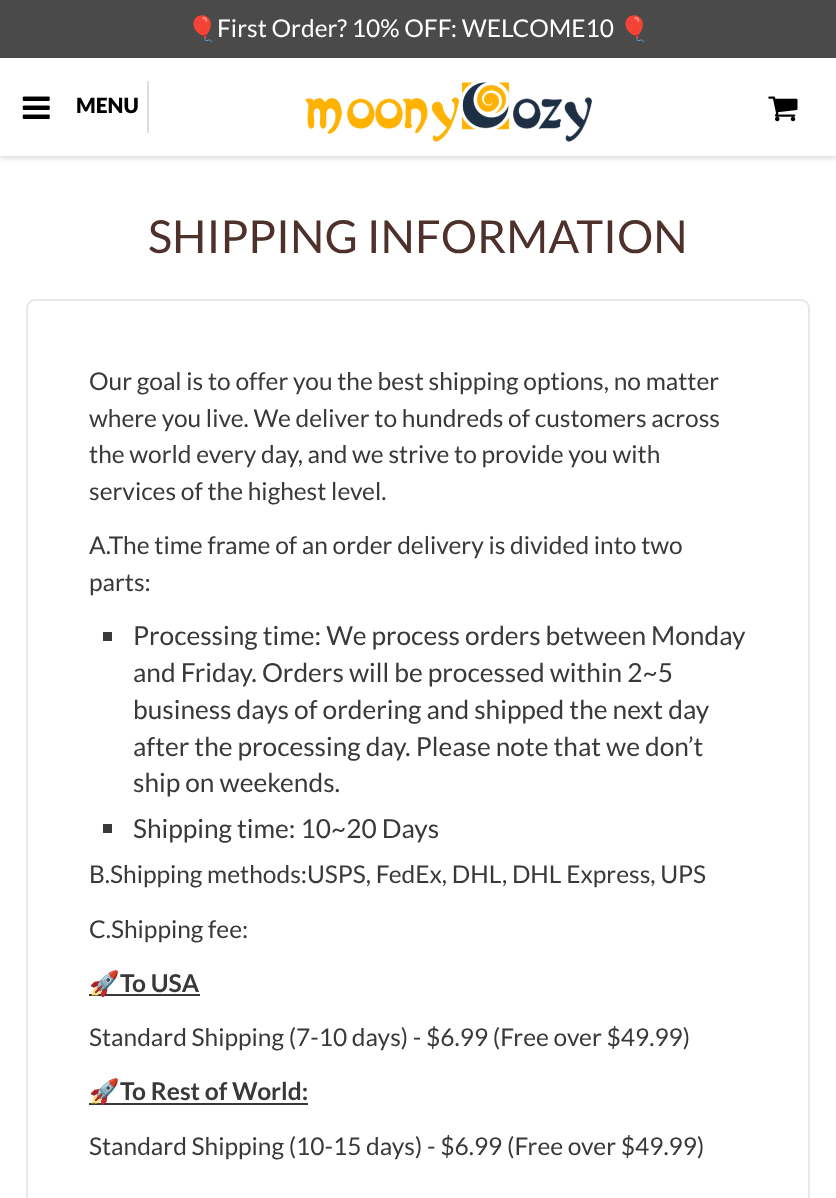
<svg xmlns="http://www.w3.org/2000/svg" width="836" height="1198">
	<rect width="100%" height="100%" fill="#FFFFFF" />
	<rect x="0" y="61" width="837" height="98" fill="#0B191C" fill-opacity="0.12" filter="blur(2px)" />
	<rect x="0" y="0" width="836" height="58" fill="#4A4A4A" />
	<text x="187" y="37" font-family="Noto Color Emoji" font-size="24.5" fill="#FFFFFF">🎈</text>
	<text x="217" y="37" font-family="Lato" font-size="24.5" fill="#FFFFFF">First Order? 10% OFF: WELCOME10</text>
	<text x="619" y="37" font-family="Noto Color Emoji" font-size="24.5" fill="#FFFFFF">🎈</text>
	<rect x="0" y="58" width="836" height="98" fill="#FFFFFF" />
	<image x="22" y="96" width="28" height="23" href="assets/img1.png" />
	<rect x="147" y="81" width="2" height="52" fill="#DDDDDD" />
	<text x="76" y="113" font-family="Lato" font-size="21" font-weight="900" fill="#000000">MENU</text>
	<image x="305" y="82" width="288" height="60" href="assets/img2.png" />
	<image x="768" y="96" width="30" height="26" href="assets/img3.png" />
	<text x="148" y="253" font-family="Lato" font-size="45.5" fill="#4E312B">SHIPPING INFORMATION</text>
	<rect x="27" y="300" width="782" height="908" rx="8" fill="none" stroke="#E7E8E8" stroke-width="2" />
	<g font-family="Lato" font-size="24.5" fill="#393939">
		<text x="89" y="390">Our goal is to offer you the best shipping options, no matter</text>
		<text x="89" y="427">where you live. We deliver to hundreds of customers across</text>
		<text x="89" y="463">the world every day, and we strive to provide you with</text>
		<text x="89" y="500">services of the highest level.</text>
		<text x="89" y="554">A.The time frame of an order delivery is divided into two</text>
		<text x="89" y="591">parts:</text>
	</g>
	<rect x="103" y="632" width="9" height="9" fill="#393939" />
	<g font-family="Lato" font-size="26.25" fill="#393939">
		<text x="133" y="645">Processing time: We process orders between Monday</text>
		<text x="133" y="682">and Friday. Orders will be processed within 2~5</text>
		<text x="133" y="719">business days of ordering and shipped the next day</text>
		<text x="133" y="756">after the processing day. Please note that we don’t</text>
		<text x="133" y="792">ship on weekends.</text>
	</g>
	<rect x="103" y="824" width="9" height="9" fill="#393939" />
	<text x="133" y="838" font-family="Lato" font-size="26.25" fill="#393939">Shipping time: 10~20 Days</text>
	<g font-family="Lato" font-size="24.5" fill="#393939">
		<text x="89" y="883">B.Shipping methods:USPS, FedEx, DHL, DHL Express, UPS</text>
		<text x="89" y="938">C.Shipping fee:</text>
	</g>
	<rect x="89" y="994" width="111" height="2" fill="#393939" />
	<text x="89" y="992" font-family="Noto Color Emoji" font-size="24.5" font-weight="700" fill="#393939">🚀</text>
	<text x="120" y="992" font-family="Lato" font-size="24.5" font-weight="700" fill="#393939">To USA</text>
	<text x="89" y="1046" font-family="Lato" font-size="24.5" fill="#393939">Standard Shipping (7-10 days) - $6.99 (Free over $49.99)</text>
	<rect x="89" y="1103" width="219" height="2" fill="#393939" />
	<text x="89" y="1100" font-family="Noto Color Emoji" font-size="24.5" font-weight="700" fill="#393939">🚀</text>
	<text x="120" y="1100" font-family="Lato" font-size="24.5" font-weight="700" fill="#393939">To Rest of World:</text>
	<text x="89" y="1155" font-family="Lato" font-size="24.5" fill="#393939">Standard Shipping (10-15 days) - $6.99 (Free over $49.99)</text>
</svg>
